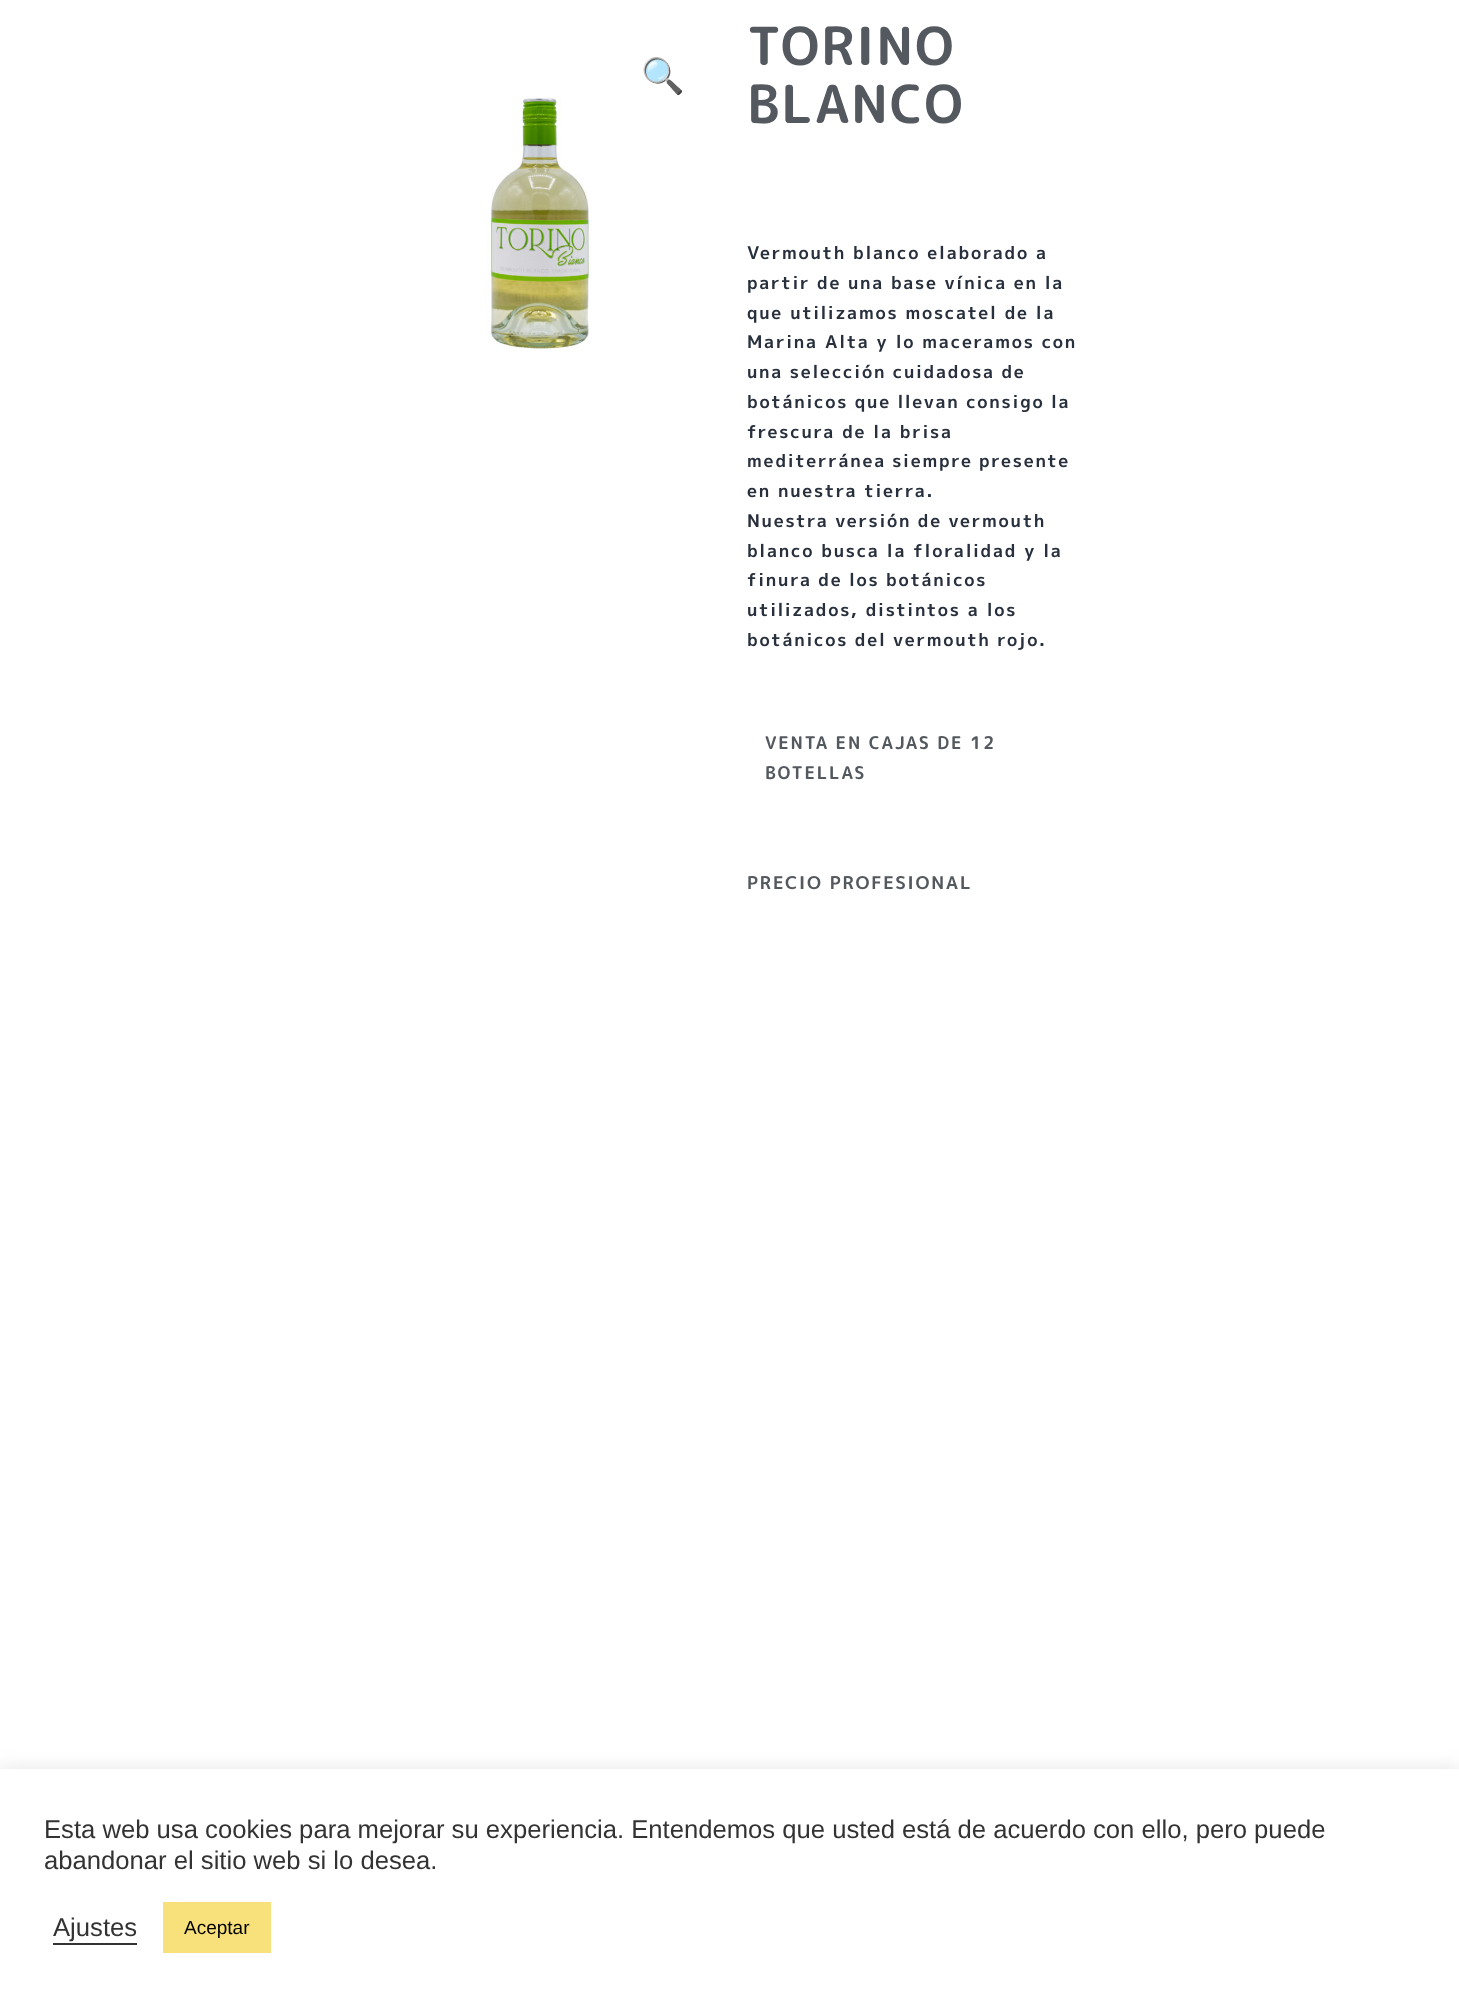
<svg xmlns="http://www.w3.org/2000/svg" width="1459" height="2005">
	<rect width="100%" height="100%" fill="#FFFFFF" />
	<text x="641" y="88" font-family="Noto Color Emoji" font-size="35" fill="#28303D">🔍</text>
	<image x="487" y="96" width="105" height="253" href="assets/img1.png" />
	<g font-family="'Rounded Mplus 1c Bold'" font-size="52.5" font-weight="700" letter-spacing="1.75" fill="#54595F">
		<text x="747" y="65">TORINO</text>
		<text x="747" y="123">BLANCO</text>
	</g>
	<g font-family="'M PLUS 1p'" font-size="17.5" font-weight="700" letter-spacing="1.75" fill="#28303D">
		<text x="747" y="259">Vermouth blanco elaborado a</text>
		<text x="747" y="289" word-spacing="-0.25">partir de una base vínica en la</text>
		<text x="747" y="319">que utilizamos moscatel de la</text>
		<text x="747" y="348">Marina Alta y lo maceramos con</text>
		<text x="747" y="378" word-spacing="-0.5">una selección cuidadosa de</text>
		<text x="747" y="408" word-spacing="-0.5">botánicos que llevan consigo la</text>
		<text x="747" y="438">frescura de la brisa</text>
		<text x="747" y="467" word-spacing="-1">mediterránea siempre presente</text>
		<text x="747" y="497">en nuestra tierra.</text>
		<text x="747" y="527" word-spacing="-0.5">Nuestra versión de vermouth</text>
		<text x="747" y="557">blanco busca la floralidad y la</text>
		<text x="747" y="586" word-spacing="-0.5">finura de los botánicos</text>
		<text x="747" y="616">utilizados, distintos a los</text>
		<text x="747" y="646" word-spacing="-0.5">botánicos del vermouth rojo.</text>
	</g>
	<g font-family="'Rounded Mplus 1c Bold'" font-size="17.5" font-weight="700" letter-spacing="1.75" fill="#54595F">
		<text x="765" y="749">VENTA EN CAJAS DE 12</text>
		<text x="765" y="779">BOTELLAS</text>
	</g>
	<text x="747" y="889" font-family="'M PLUS 1p'" font-size="17.5" font-weight="700" letter-spacing="1.75" fill="#54595F">PRECIO PROFESIONAL</text>
	<rect x="0" y="1768" width="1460" height="236" fill="#ACABAB" fill-opacity="0.3" filter="blur(9px)" />
	<rect x="0" y="1769" width="1459" height="236" fill="#FFFFFF" />
	<g font-family="Liberation Sans" font-size="25.65" fill="#333333">
		<text x="44" y="1838">Esta web usa cookies para mejorar su experiencia. Entendemos que usted está de acuerdo con ello, pero puede</text>
		<text x="44" y="1869">abandonar el sitio web si lo desea.</text>
		<text x="53" y="1936">Ajustes</text>
	</g>
	<rect x="53" y="1943" width="84" height="2" fill="#333333" />
	<rect x="163" y="1902" width="108" height="51" fill="#F8E17A" />
	<text x="184" y="1934" font-family="Liberation Sans" font-size="19" fill="#000000">Aceptar</text>
</svg>
